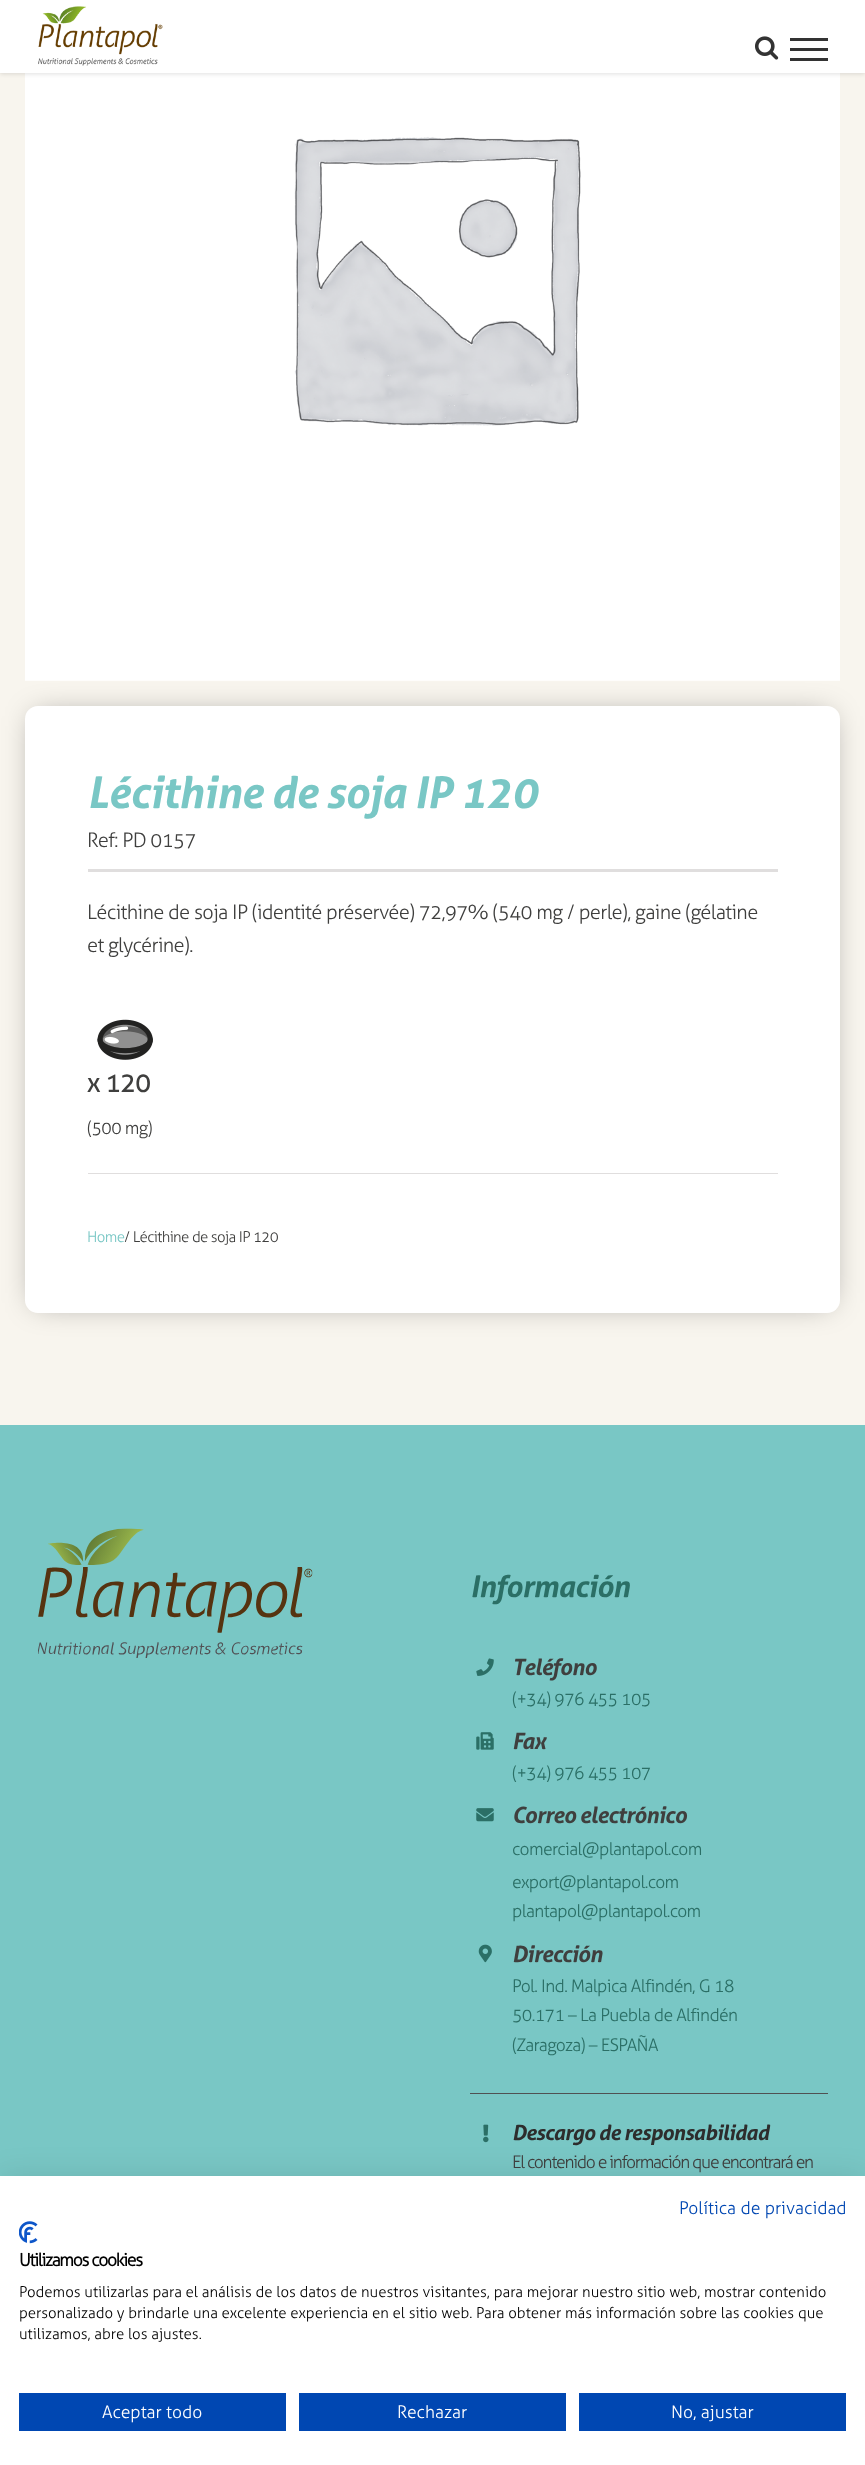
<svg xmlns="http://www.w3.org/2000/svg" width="865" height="2465">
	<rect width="100%" height="100%" fill="#F8F5EE" />
	<image x="25" y="73" width="815" height="608" href="assets/img3.png" />
	<rect x="0" y="1" width="865" height="73" fill="#000000" fill-opacity="0.12" filter="blur(2px)" />
	<rect x="0" y="0" width="865" height="73" fill="#FFFFFF" />
	<image x="38" y="6" width="125" height="60" href="assets/img1.png" />
	<image x="755" y="36" width="24" height="24" href="assets/img2.png" />
	<rect x="790" y="38" width="38" height="3" fill="#333333" />
	<rect x="790" y="48" width="38" height="3" fill="#333333" />
	<rect x="790" y="58" width="38" height="3" fill="#333333" />
	<rect x="35" y="716" width="795" height="587" rx="2.5" fill="#000000" fill-opacity="0.39" filter="blur(15px)" />
	<rect x="25" y="706" width="815" height="607" rx="13" fill="#FFFFFF" />
	<text x="87" y="808" font-family="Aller" font-size="43.75" font-weight="700" font-style="italic" letter-spacing="-0.62" fill="#79C7C5">Lécithine de soja IP 120</text>
	<text x="87" y="847" font-family="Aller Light" font-size="20" font-weight="300" letter-spacing="-0.62" fill="#3F3F3E">Ref: PD 0157</text>
	<rect x="88" y="869" width="690" height="3" fill="#E0DEDE" />
	<g font-family="Aller Light" font-size="20" font-weight="300" letter-spacing="-0.62" fill="#3F3F3E">
		<text x="87" y="919">Lécithine de soja IP (identité préservée) 72,97% (540 mg / perle), gaine (gélatine</text>
		<text x="87" y="952">et glycérine).</text>
	</g>
	<image x="97" y="1019" width="56" height="41" href="assets/img4.png" />
	<text x="87" y="1092" font-family="Aller Light" font-size="26" font-weight="700" letter-spacing="-0.62" fill="#3F3F3E">x 120</text>
	<text x="87" y="1134" font-family="Aller Light" font-size="17.5" font-weight="300" letter-spacing="-0.62" fill="#3F3F3E">(500 mg)</text>
	<rect x="88" y="1173" width="690" height="1" fill="#E0DEDE" />
	<text x="87" y="1242" font-family="Aller Light" font-size="15" font-weight="300" letter-spacing="-0.62" fill="#79C7C5">Home</text>
	<text x="124" y="1242" font-family="Aller Light" font-size="15" font-weight="300" letter-spacing="-0.62" fill="#3F3F3E">/ Lécithine de soja IP 120</text>
	<rect x="0" y="1425" width="865" height="751" fill="#79C7C5" />
	<image x="38" y="1528" width="275" height="130" href="assets/img5.png" />
	<text x="470" y="1597" font-family="Aller" font-size="30" font-weight="700" font-style="italic" letter-spacing="-0.62" fill="#2B6F66">Información</text>
	<image x="476" y="1658" width="18" height="18" href="assets/img6.png" />
	<text x="512" y="1675" font-family="Aller" font-size="22.5" font-weight="700" font-style="italic" letter-spacing="-0.62" fill="#3F3F3E">Teléfono</text>
	<text x="512" y="1705" font-family="Aller Light" font-size="17.5" font-weight="300" letter-spacing="-0.62" fill="#2B6F66">(+34) 976 455 105</text>
	<image x="476" y="1732" width="18" height="18" href="assets/img7.png" />
	<text x="512" y="1749" font-family="Aller" font-size="22.5" font-weight="700" font-style="italic" letter-spacing="-0.62" fill="#3F3F3E">Fax</text>
	<text x="512" y="1779" font-family="Aller Light" font-size="17.5" font-weight="300" letter-spacing="-0.62" fill="#2B6F66">(+34) 976 455 107</text>
	<image x="476" y="1808" width="18" height="14" href="assets/img8.png" />
	<text x="512" y="1823" font-family="Aller" font-size="22.5" font-weight="700" font-style="italic" letter-spacing="-0.62" fill="#3F3F3E">Correo electrónico</text>
	<g font-family="Aller Light" font-size="17.5" font-weight="300" letter-spacing="-0.62" fill="#2B6F66">
		<text x="512" y="1855">comercial@plantapol.com</text>
		<text x="512" y="1888">export@plantapol.com</text>
		<text x="512" y="1917">plantapol@plantapol.com</text>
	</g>
	<image x="478" y="1944" width="14" height="19" href="assets/img9.png" />
	<text x="512" y="1962" font-family="Aller" font-size="22.5" font-weight="700" font-style="italic" letter-spacing="-0.62" fill="#3F3F3E">Dirección</text>
	<g font-family="Aller Light" font-size="17.5" font-weight="300" letter-spacing="-0.62" fill="#2B6F66">
		<text x="512" y="1992">Pol. Ind. Malpica Alfindén, G 18</text>
		<text x="512" y="2021">50.171 – La Puebla de Alfindén</text>
		<text x="512" y="2051">(Zaragoza) – ESPAÑA</text>
	</g>
	<rect x="470" y="2093" width="358" height="1" fill="#505152" />
	<image x="483" y="2124" width="6" height="19" href="assets/img10.png" />
	<text x="512" y="2140" font-family="Aller" font-size="21" font-weight="700" font-style="italic" letter-spacing="-0.62" fill="#2D2D2D">Descargo de responsabilidad</text>
	<text x="512" y="2168" font-family="Aller Light" font-size="17.5" font-weight="300" letter-spacing="-1.25" fill="#3F3F3E">El contenido e información que encontrará en</text>
	<rect x="0" y="2176" width="865" height="289" fill="#000000" fill-opacity="0.1" filter="blur(15px)" />
	<rect x="0" y="2176" width="865" height="289" fill="#FFFFFF" />
	<text x="679" y="2214" font-family="Aller Light" font-size="17.5" font-weight="300" fill="#0047B2">Política de privacidad</text>
	<image x="19" y="2221" width="19" height="23" href="assets/img11.png" />
	<text x="19" y="2266" font-family="Aller Light" font-size="17.5" font-weight="700" letter-spacing="-1.25" fill="#000000">Utilizamos cookies</text>
	<g font-family="Aller Light" font-size="15" font-weight="300" fill="#000000">
		<text x="19" y="2297">Podemos utilizarlas para el análisis de los datos de nuestros visitantes, para mejorar nuestro sitio web, mostrar contenido</text>
		<text x="19" y="2318">personalizado y brindarle una excelente experiencia en el sitio web. Para obtener más información sobre las cookies que</text>
		<text x="19" y="2339">utilizamos, abre los ajustes.</text>
	</g>
	<rect x="19" y="2393" width="267" height="38" fill="#0047B2" />
	<text x="102" y="2418" font-family="Aller Light" font-size="17.5" font-weight="300" fill="#FFFFFF">Aceptar todo</text>
	<rect x="299" y="2393" width="267" height="38" fill="#0047B2" />
	<text x="397" y="2418" font-family="Aller Light" font-size="17.5" font-weight="300" fill="#FFFFFF">Rechazar</text>
	<rect x="579" y="2393" width="267" height="38" fill="#0047B2" />
	<text x="671" y="2418" font-family="Aller Light" font-size="17.5" font-weight="300" fill="#FFFFFF">No, ajustar</text>
</svg>
